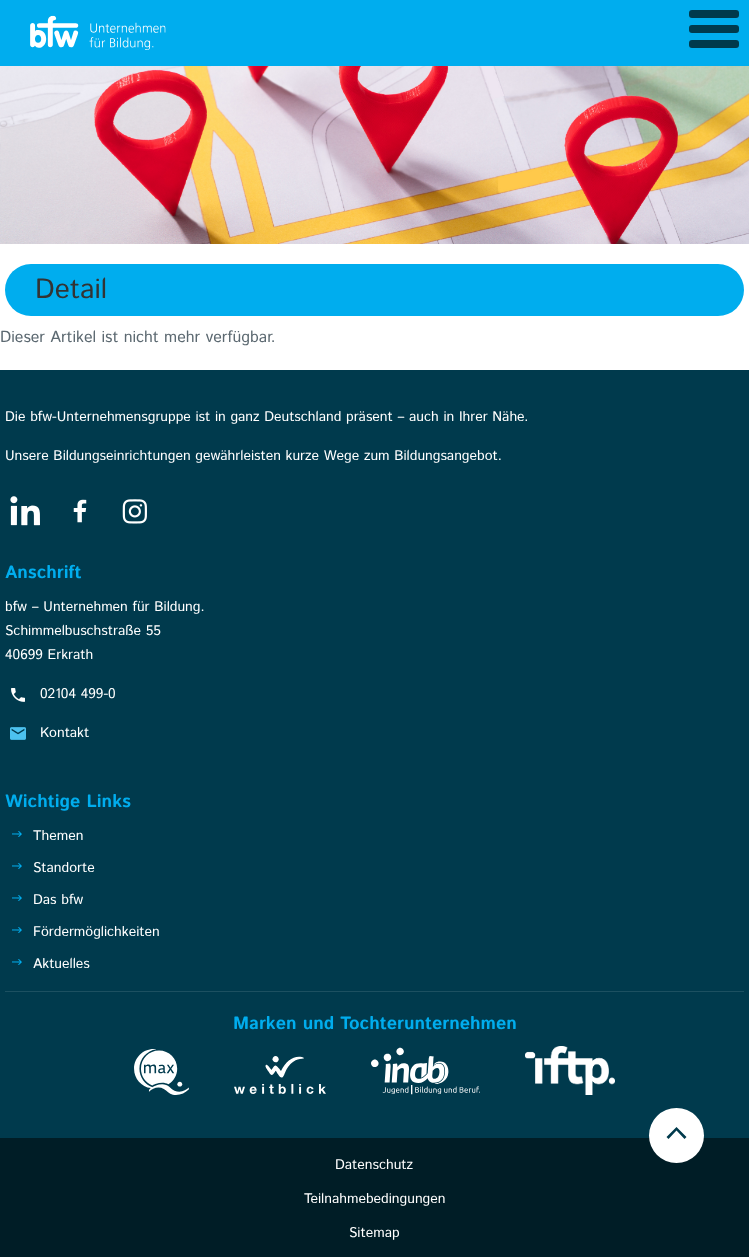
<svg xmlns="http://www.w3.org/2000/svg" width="749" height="1257">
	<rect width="100%" height="100%" fill="#FFFFFF" />
	<rect x="0" y="0" width="749" height="66" fill="#00ADEE" />
	<image x="30" y="15" width="136" height="35" href="assets/img1.png" />
	<rect x="689" y="10" width="50" height="8" rx="3" fill="#003A4D" />
	<rect x="689" y="25" width="50" height="8" rx="3" fill="#003A4D" />
	<rect x="689" y="40" width="50" height="8" rx="3" fill="#003A4D" />
	<image x="0" y="66" width="749" height="178" href="assets/img2.png" />
	<rect x="5" y="264" width="739" height="52" rx="26" fill="#00ADEE" />
	<text x="35" y="298" font-family="Istok Web" font-size="28" fill="#333333">Detail</text>
	<text x="0" y="342" font-family="Istok Web" font-size="16" fill="#5C6971">Dieser Artikel ist nicht mehr verfügbar.</text>
	<rect x="0" y="370" width="749" height="768" fill="#003A4D" />
	<g font-family="Istok Web" font-size="14" fill="#FFFFFF">
		<text x="5" y="421">Die bfw-Unternehmensgruppe ist in ganz Deutschland präsent – auch in Ihrer Nähe.</text>
		<text x="5" y="460">Unsere Bildungseinrichtungen gewährleisten kurze Wege zum Bildungsangebot.</text>
	</g>
	<image x="10" y="496" width="30" height="30" href="assets/img3.png" />
	<image x="73" y="499" width="14" height="24" href="assets/img4.png" />
	<image x="122" y="499" width="25" height="25" href="assets/img5.png" />
	<text x="5" y="578" font-family="Istok Web" font-size="18" font-weight="700" fill="#00ADEE">Anschrift</text>
	<g font-family="Istok Web" font-size="14" fill="#FFFFFF">
		<text x="5" y="611">bfw – Unternehmen für Bildung.</text>
		<text x="5" y="635">Schimmelbuschstraße 55</text>
		<text x="5" y="659">40699 Erkrath</text>
	</g>
	<image x="11" y="688" width="14" height="14" href="assets/img6.png" />
	<text x="40" y="698" font-family="Istok Web" font-size="14" fill="#FFFFFF">02104 499-0</text>
	<image x="10" y="727" width="16" height="13" href="assets/img7.png" />
	<text x="40" y="737" font-family="Istok Web" font-size="14" fill="#FFFFFF">Kontakt</text>
	<text x="5" y="807" font-family="Istok Web" font-size="18" font-weight="700" fill="#00ADEE">Wichtige Links</text>
	<image x="12" y="831" width="10" height="6" href="assets/img8.png" />
	<text x="33" y="840" font-family="Istok Web" font-size="14" fill="#FFFFFF">Themen</text>
	<image x="12" y="863" width="10" height="6" href="assets/img8.png" />
	<text x="33" y="872" font-family="Istok Web" font-size="14" fill="#FFFFFF">Standorte</text>
	<image x="12" y="895" width="10" height="6" href="assets/img8.png" />
	<text x="33" y="904" font-family="Istok Web" font-size="14" fill="#FFFFFF">Das bfw</text>
	<image x="12" y="927" width="10" height="6" href="assets/img8.png" />
	<text x="33" y="936" font-family="Istok Web" font-size="14" fill="#FFFFFF">Fördermöglichkeiten</text>
	<image x="12" y="959" width="10" height="6" href="assets/img8.png" />
	<text x="33" y="968" font-family="Istok Web" font-size="14" fill="#FFFFFF">Aktuelles</text>
	<rect x="5" y="991" width="739" height="1" fill="#1C5061" />
	<text x="233" y="1029" font-family="Istok Web" font-size="18" font-weight="700" fill="#00ADEE">Marken und Tochterunternehmen</text>
	<image x="134" y="1049" width="55" height="46" href="assets/img9.png" />
	<image x="234" y="1056" width="92" height="38" href="assets/img10.png" />
	<image x="371" y="1047" width="109" height="48" href="assets/img11.png" />
	<image x="525" y="1046" width="90" height="49" href="assets/img12.png" />
	<rect x="0" y="1138" width="749" height="119" fill="#001D26" />
	<circle cx="676.5" cy="1135.5" r="27.5" fill="#FFFFFF" />
	<path d="M676.5 1127L666.5 1137L668.5 1139L676.5 1130.5L684.5 1139L686.5 1137Z" fill="#003A4C" />
	<g font-family="Istok Web" font-size="14" fill="#FFFFFF">
		<text x="335" y="1169">Datenschutz</text>
		<text x="304" y="1203">Teilnahmebedingungen</text>
		<text x="349" y="1237">Sitemap</text>
	</g>
</svg>
